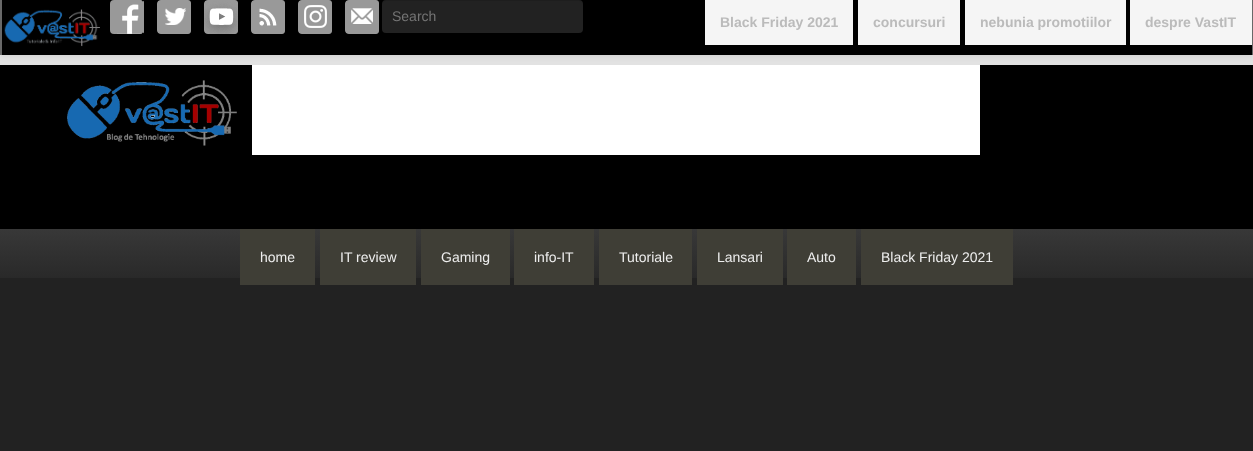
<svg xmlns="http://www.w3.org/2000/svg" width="1253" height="451">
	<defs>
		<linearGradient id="g1" gradientUnits="userSpaceOnUse" x1="627" y1="229" x2="627" y2="285"><stop offset="0" stop-color="#383838" /><stop offset="1" stop-color="#272727" /></linearGradient>
	</defs>
	<rect width="100%" height="100%" fill="#E2E2E2" />
	<rect x="0" y="0" width="1253" height="55" fill="#000000" fill-opacity="0.1" filter="blur(3.5px)" />
	<rect x="0" y="0" width="1253" height="55" fill="#686868" />
	<rect x="2" y="0" width="1250" height="55" fill="#000000" />
	<image x="4" y="9" width="96" height="38" href="assets/img1.png" />
	<image x="110" y="0" width="34" height="34" href="assets/img2.png" />
	<image x="157" y="0" width="34" height="34" href="assets/img3.png" />
	<image x="204" y="0" width="34" height="34" href="assets/img4.png" />
	<image x="251" y="0" width="34" height="34" href="assets/img5.png" />
	<image x="298" y="0" width="34" height="34" href="assets/img6.png" />
	<image x="345" y="0" width="34" height="34" href="assets/img7.png" />
	<rect x="382" y="0" width="201" height="33" rx="4" fill="#222222" />
	<path d="M386 1H579C581 1 583 3 583 5V4C583 2 581 0 579 0H386C384 0 382 2 382 4V5C382 3 384 1 386 1Z" fill="#000000" fill-opacity="0.1" />
	<text x="392" y="21" font-family="Liberation Sans" font-size="14" fill="#757575">Search</text>
	<rect x="705" y="0" width="148" height="45" fill="#F5F5F5" />
	<text x="720" y="27" font-family="Liberation Sans" font-size="14" font-weight="700" fill="#BBBBBB">Black Friday 2021</text>
	<rect x="858" y="0" width="102" height="45" fill="#F5F5F5" />
	<text x="873" y="27" font-family="Liberation Sans" font-size="14" font-weight="700" fill="#BBBBBB">concursuri</text>
	<rect x="965" y="0" width="161" height="45" fill="#F5F5F5" />
	<text x="980" y="27" font-family="Liberation Sans" font-size="14" font-weight="700" fill="#BBBBBB">nebunia promotiilor</text>
	<rect x="1130" y="0" width="122" height="45" fill="#F5F5F5" />
	<text x="1145" y="27" font-family="Liberation Sans" font-size="14" font-weight="700" fill="#BBBBBB">despre VastIT</text>
	<rect x="0" y="65" width="1253" height="164" fill="#000000" />
	<image x="67" y="80" width="170" height="66" href="assets/img8.png" />
	<rect x="252" y="65" width="728" height="90" fill="#FFFFFF" />
	<rect x="0" y="229" width="1253" height="49" fill="url(#g1)" />
	<rect x="0" y="278" width="1253" height="173" fill="#222222" />
	<rect x="240" y="229" width="75" height="56" fill="#3F3E36" />
	<text x="260" y="262" font-family="Liberation Sans" font-size="14" fill="#EEEEEE">home</text>
	<rect x="320" y="229" width="96" height="56" fill="#3F3E36" />
	<text x="340" y="262" font-family="Liberation Sans" font-size="14" fill="#EEEEEE">IT review</text>
	<rect x="421" y="229" width="89" height="56" fill="#3F3E36" />
	<text x="441" y="262" font-family="Liberation Sans" font-size="14" fill="#EEEEEE">Gaming</text>
	<rect x="514" y="229" width="80" height="56" fill="#3F3E36" />
	<text x="534" y="262" font-family="Liberation Sans" font-size="14" fill="#EEEEEE">info-IT</text>
	<rect x="599" y="229" width="93" height="56" fill="#3F3E36" />
	<text x="619" y="262" font-family="Liberation Sans" font-size="14" fill="#EEEEEE">Tutoriale</text>
	<rect x="697" y="229" width="86" height="56" fill="#3F3E36" />
	<text x="717" y="262" font-family="Liberation Sans" font-size="14" fill="#EEEEEE">Lansari</text>
	<rect x="787" y="229" width="69" height="56" fill="#3F3E36" />
	<text x="807" y="262" font-family="Liberation Sans" font-size="14" fill="#EEEEEE">Auto</text>
	<rect x="861" y="229" width="152" height="56" fill="#3F3E36" />
	<text x="881" y="262" font-family="Liberation Sans" font-size="14" fill="#EEEEEE">Black Friday 2021</text>
</svg>
